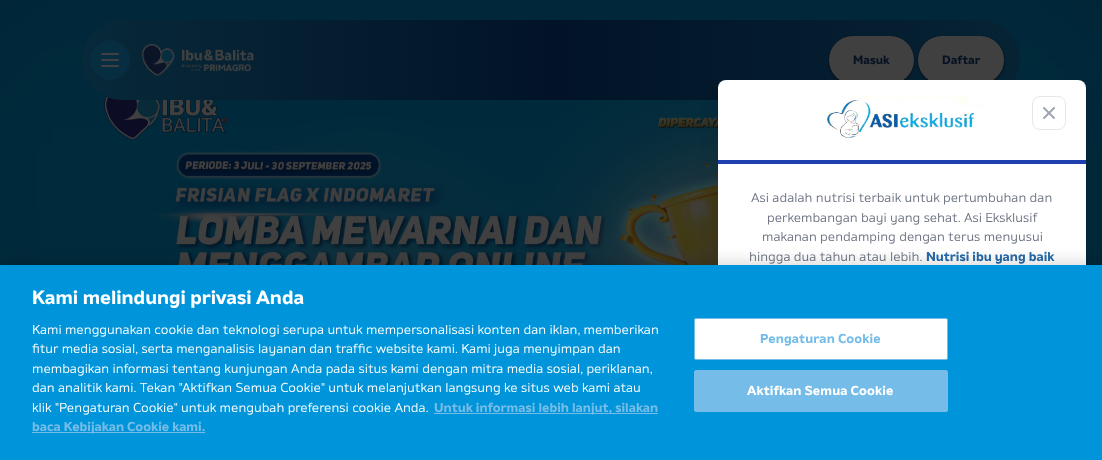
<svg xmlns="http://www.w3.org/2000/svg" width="1102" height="460">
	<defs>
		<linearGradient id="g1" gradientUnits="userSpaceOnUse" x1="82" y1="60" x2="1020" y2="60"><stop offset="0" stop-color="#072939" /><stop offset="0.5" stop-color="#021327" /><stop offset="1" stop-color="#062334" /></linearGradient>
	</defs>
	<rect width="100%" height="100%" fill="#FFFFFF" />
	<image x="0" y="0" width="1102" height="265" href="assets/img1.png" />
	<rect x="82" y="20" width="938" height="80" rx="40" fill="url(#g1)" />
	<circle cx="110" cy="60" r="20" fill="#062E40" />
	<path d="M102 54H118M102 60H118M102 66H118" fill="none" stroke="#404040" stroke-width="2" stroke-linecap="round" stroke-linejoin="round" />
	<image x="141" y="44" width="113" height="32" href="assets/img2.png" />
	<rect x="829" y="37" width="85" height="48" rx="24" fill="#080A0F" filter="blur(1px)" />
	<rect x="829" y="36" width="85" height="48" rx="24" fill="#404040" />
	<text x="853" y="64" font-family="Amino" font-size="12" font-weight="700" fill="#061122">Masuk</text>
	<rect x="918" y="37" width="86" height="48" rx="24" fill="#080A0F" filter="blur(1px)" />
	<rect x="918" y="36" width="86" height="48" rx="24" fill="#404040" />
	<text x="942" y="64" font-family="Amino" font-size="12" font-weight="700" fill="#061122">Daftar</text>
	<rect x="723" y="105" width="358" height="354" rx="3" fill="#000000" fill-opacity="0.1" filter="blur(12.5px)" />
	<rect x="718" y="80" width="368" height="364" rx="8" fill="#FFFFFF" />
	<rect x="718" y="160" width="368" height="4" fill="#1E40AF" />
	<image x="823" y="96" width="159" height="42" href="assets/img3.png" />
	<rect x="1032.5" y="96.5" width="33" height="33" rx="7.5" fill="none" stroke="#E5E7EB" />
	<image x="1043" y="107" width="12" height="12" href="assets/img4.png" />
	<g font-family="Amino" font-size="13" fill="#6B7280">
		<text x="751" y="202">Asi adalah nutrisi terbaik untuk pertumbuhan dan</text>
		<text x="767" y="222">perkembangan bayi yang sehat. Asi Eksklusif</text>
		<text x="762" y="241">makanan pendamping dengan terus menyusui</text>
		<text x="749" y="261">hingga dua tahun atau lebih.</text>
	</g>
	<text x="926" y="261" font-family="Amino" font-size="13" font-weight="700" fill="#276AA9">Nutrisi ibu yang baik</text>
	<rect x="0" y="265" width="1102" height="195" fill="#000000" fill-opacity="0.2" filter="blur(9px)" />
	<rect x="0" y="265" width="1102" height="195" fill="#0095DA" />
	<text x="32" y="304" font-family="Amino" font-size="19.25" font-weight="700" fill="#FFFFFF">Kami melindungi privasi Anda</text>
	<g font-family="Amino" font-size="13" fill="#FFFFFF">
		<text x="32" y="334">Kami menggunakan cookie dan teknologi serupa untuk mempersonalisasi konten dan iklan, memberikan</text>
		<text x="32" y="353">fitur media sosial, serta menganalisis layanan dan traffic website kami. Kami juga menyimpan dan</text>
		<text x="32" y="373">membagikan informasi tentang kunjungan Anda pada situs kami dengan mitra media sosial, periklanan,</text>
		<text x="32" y="392">dan analitik kami. Tekan "Aktifkan Semua Cookie" untuk melanjutkan langsung ke situs web kami atau</text>
		<text x="32" y="412">klik "Pengaturan Cookie" untuk mengubah preferensi cookie Anda.</text>
	</g>
	<rect x="434" y="413" width="224" height="1" fill="#75BDE8" />
	<text x="434" y="412" font-family="Amino" font-size="13" font-weight="700" fill="#75BDE8">Untuk informasi lebih lanjut, silakan</text>
	<rect x="32" y="432" width="173" height="1" fill="#75BDE8" />
	<text x="32" y="431" font-family="Amino" font-size="13" font-weight="700" fill="#75BDE8">baca Kebijakan Cookie kami.</text>
	<rect x="694.5" y="318.5" width="253" height="41" rx="1.5" fill="#FFFFFF" stroke="#75BDE8" />
	<text x="760" y="343" font-family="Amino" font-size="13" font-weight="700" letter-spacing="0.1" fill="#75BDE8">Pengaturan Cookie</text>
	<rect x="694.5" y="370.5" width="253" height="41" rx="1.5" fill="#75BDE8" stroke="#75BDE8" />
	<text x="747" y="395" font-family="Amino" font-size="13" font-weight="700" letter-spacing="0.1" fill="#FFFFFF">Aktifkan Semua Cookie</text>
</svg>
